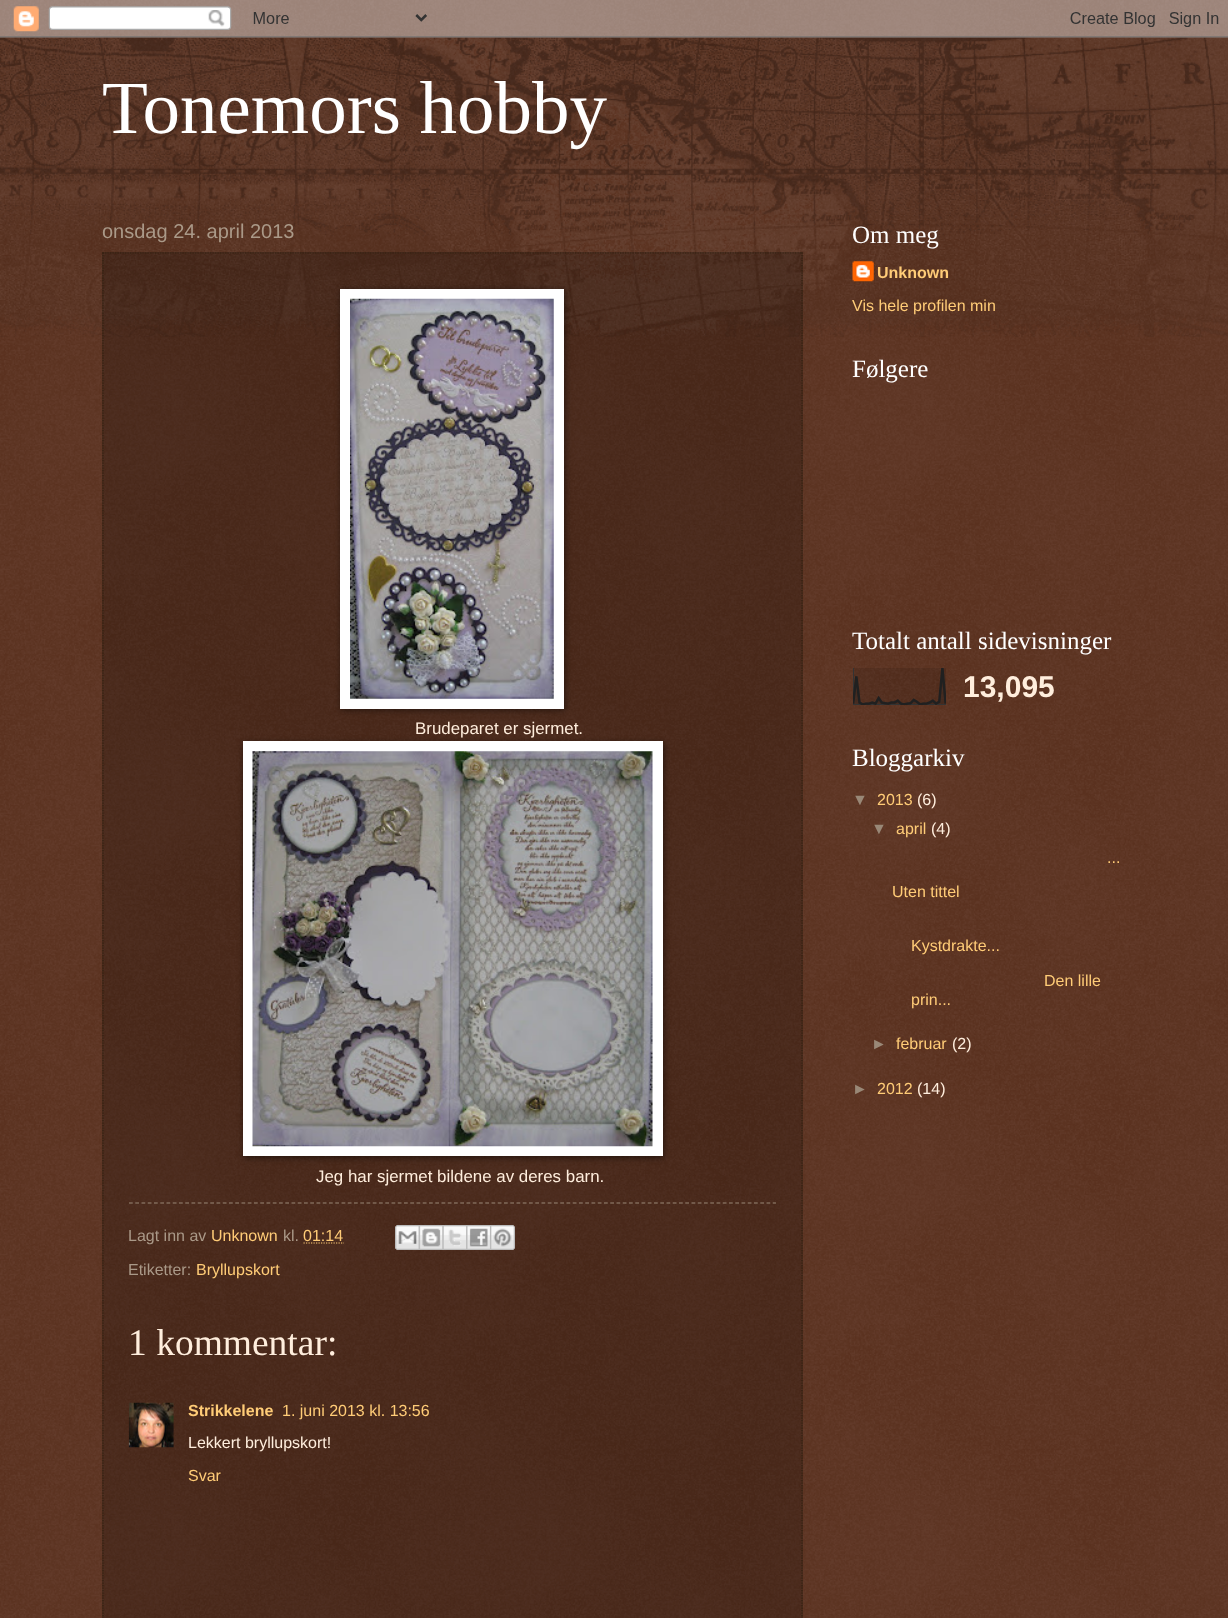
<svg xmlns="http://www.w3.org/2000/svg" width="1228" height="1618">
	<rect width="100%" height="100%" fill="#441500" />
	<image x="0" y="0" width="1228" height="1618" href="assets/img1.png" />
	<image x="0" y="37" width="1228" height="300" href="assets/img3.png" />
	<image x="0" y="0" width="1228" height="38" href="assets/img2.png" />
	<text x="102" y="133" font-family="Liberation Serif" font-size="75" fill="#FFFFFF">Tonemors hobby</text>
	<text x="102" y="238" font-family="Liberation Sans" font-size="20" fill="#AA9988">onsdag 24. april 2013</text>
	<rect x="102" y="252" width="701" height="1366" fill="#000000" fill-opacity="0.2" />
	<path d="M102.5 253H802.5" fill="none" stroke="#332211" stroke-width="1.2" stroke-dasharray="1.25 1.25" />
	<path d="M802 252.5V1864" fill="none" stroke="#332211" stroke-width="1.2" stroke-dasharray="1.25 1.25" />
	<path d="M103 252.5V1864" fill="none" stroke="#332211" stroke-width="1.2" stroke-dasharray="1.25 1.25" />
	<rect x="341" y="290" width="224" height="420" fill="#000000" fill-opacity="0.5" filter="blur(3px)" />
	<rect x="340" y="289" width="224" height="420" fill="#FFFFFF" />
	<image x="350" y="298" width="204" height="401" href="assets/img4.png" />
	<text x="415" y="734" font-family="Liberation Sans" font-size="16.9" fill="#FFEEDD">Brudeparet er sjermet.</text>
	<rect x="244" y="743" width="420" height="415" fill="#000000" fill-opacity="0.5" filter="blur(3px)" />
	<rect x="243" y="741" width="420" height="415" fill="#FFFFFF" />
	<image x="252" y="751" width="401" height="396" href="assets/img5.png" />
	<text x="316" y="1182" font-family="Liberation Sans" font-size="16.9" fill="#FFEEDD">Jeg har sjermet bildene av deres barn.</text>
	<path d="M129 1203H776" fill="none" stroke="#998877" stroke-width="1.2" stroke-dasharray="3.75 2.5" />
	<text x="128" y="1241" font-family="Liberation Sans" font-size="16" fill="#AA9988">Lagt inn av</text>
	<text x="211" y="1241" font-family="Liberation Sans" font-size="16" fill="#FFCC77">Unknown</text>
	<text x="283" y="1241" font-family="Liberation Sans" font-size="16" fill="#AA9988">kl.</text>
	<text x="303" y="1241" font-family="Liberation Sans" font-size="16" fill="#FFCC77">01:14</text>
	<path d="M303.5 1243H344" fill="none" stroke="#FFCC77" stroke-width="1.2" stroke-dasharray="1.25 1.25" />
	<image x="395" y="1225" width="24" height="25" href="assets/img6.png" />
	<image x="418" y="1225" width="25" height="25" href="assets/img7.png" />
	<image x="442" y="1225" width="25" height="25" href="assets/img8.png" />
	<image x="466" y="1225" width="24" height="25" href="assets/img9.png" />
	<image x="490" y="1225" width="25" height="25" href="assets/img10.png" />
	<text x="128" y="1275" font-family="Liberation Sans" font-size="16" fill="#AA9988">Etiketter:</text>
	<text x="196" y="1275" font-family="Liberation Sans" font-size="16" fill="#FFCC77">Bryllupskort</text>
	<text x="128" y="1355" font-family="Liberation Serif" font-size="37.5" fill="#FFEEDD">1 kommentar:</text>
	<image x="128" y="1402" width="46" height="46" href="assets/img11.png" />
	<text x="188" y="1416" font-family="Liberation Sans" font-size="16" font-weight="700" fill="#FFCC77">Strikkelene</text>
	<text x="282" y="1416" font-family="Liberation Sans" font-size="16" fill="#FFCC77">1. juni 2013 kl. 13:56</text>
	<text x="188" y="1448" font-family="Liberation Sans" font-size="16" fill="#FFEEDD">Lekkert bryllupskort!</text>
	<text x="188" y="1481" font-family="Liberation Sans" font-size="16" fill="#FFCC77">Svar</text>
	<text x="852" y="243" font-family="Liberation Serif" font-size="25" fill="#FFFFFF">Om meg</text>
	<image x="852" y="261" width="22" height="21" href="assets/img12.png" />
	<text x="877" y="278" font-family="Liberation Sans" font-size="16" font-weight="700" fill="#FFCC77">Unknown</text>
	<text x="852" y="311" font-family="Liberation Sans" font-size="16" fill="#FFCC77">Vis hele profilen min</text>
	<g font-family="Liberation Serif" font-size="25" fill="#FFFFFF">
		<text x="852" y="377">Følgere</text>
		<text x="852" y="649">Totalt antall sidevisninger</text>
	</g>
	<image x="853" y="668" width="93" height="37" href="assets/img13.png" />
	<text x="963" y="697" font-family="Liberation Sans" font-size="30" font-weight="700" fill="#FFEEDD">13,095</text>
	<text x="852" y="766" font-family="Liberation Serif" font-size="25" fill="#FFFFFF">Bloggarkiv</text>
	<text x="852" y="805" font-family="Liberation Sans" font-size="16" fill="#998877">▼</text>
	<text x="877" y="805" font-family="Liberation Sans" font-size="16" fill="#FFCC77">2013</text>
	<text x="917" y="805" font-family="Liberation Sans" font-size="16" fill="#FFEEDD">(6)</text>
	<text x="871" y="834" font-family="Liberation Sans" font-size="16" fill="#998877">▼</text>
	<text x="896" y="834" font-family="Liberation Sans" font-size="16" fill="#FFCC77">april</text>
	<text x="931" y="834" font-family="Liberation Sans" font-size="16" fill="#FFEEDD">(4)</text>
	<g font-family="Liberation Sans" font-size="16" fill="#FFCC77">
		<text x="1107" y="863">...</text>
		<text x="892" y="897">Uten tittel</text>
		<text x="911" y="951">Kystdrakte...</text>
		<text x="1044" y="986">Den lille</text>
		<text x="911" y="1005">prin...</text>
	</g>
	<text x="871" y="1049" font-family="Liberation Sans" font-size="16" fill="#998877">►</text>
	<text x="896" y="1049" font-family="Liberation Sans" font-size="16" fill="#FFCC77">februar</text>
	<text x="952" y="1049" font-family="Liberation Sans" font-size="16" fill="#FFEEDD">(2)</text>
	<text x="852" y="1094" font-family="Liberation Sans" font-size="16" fill="#998877">►</text>
	<text x="877" y="1094" font-family="Liberation Sans" font-size="16" fill="#FFCC77">2012</text>
	<text x="917" y="1094" font-family="Liberation Sans" font-size="16" fill="#FFEEDD">(14)</text>
</svg>
